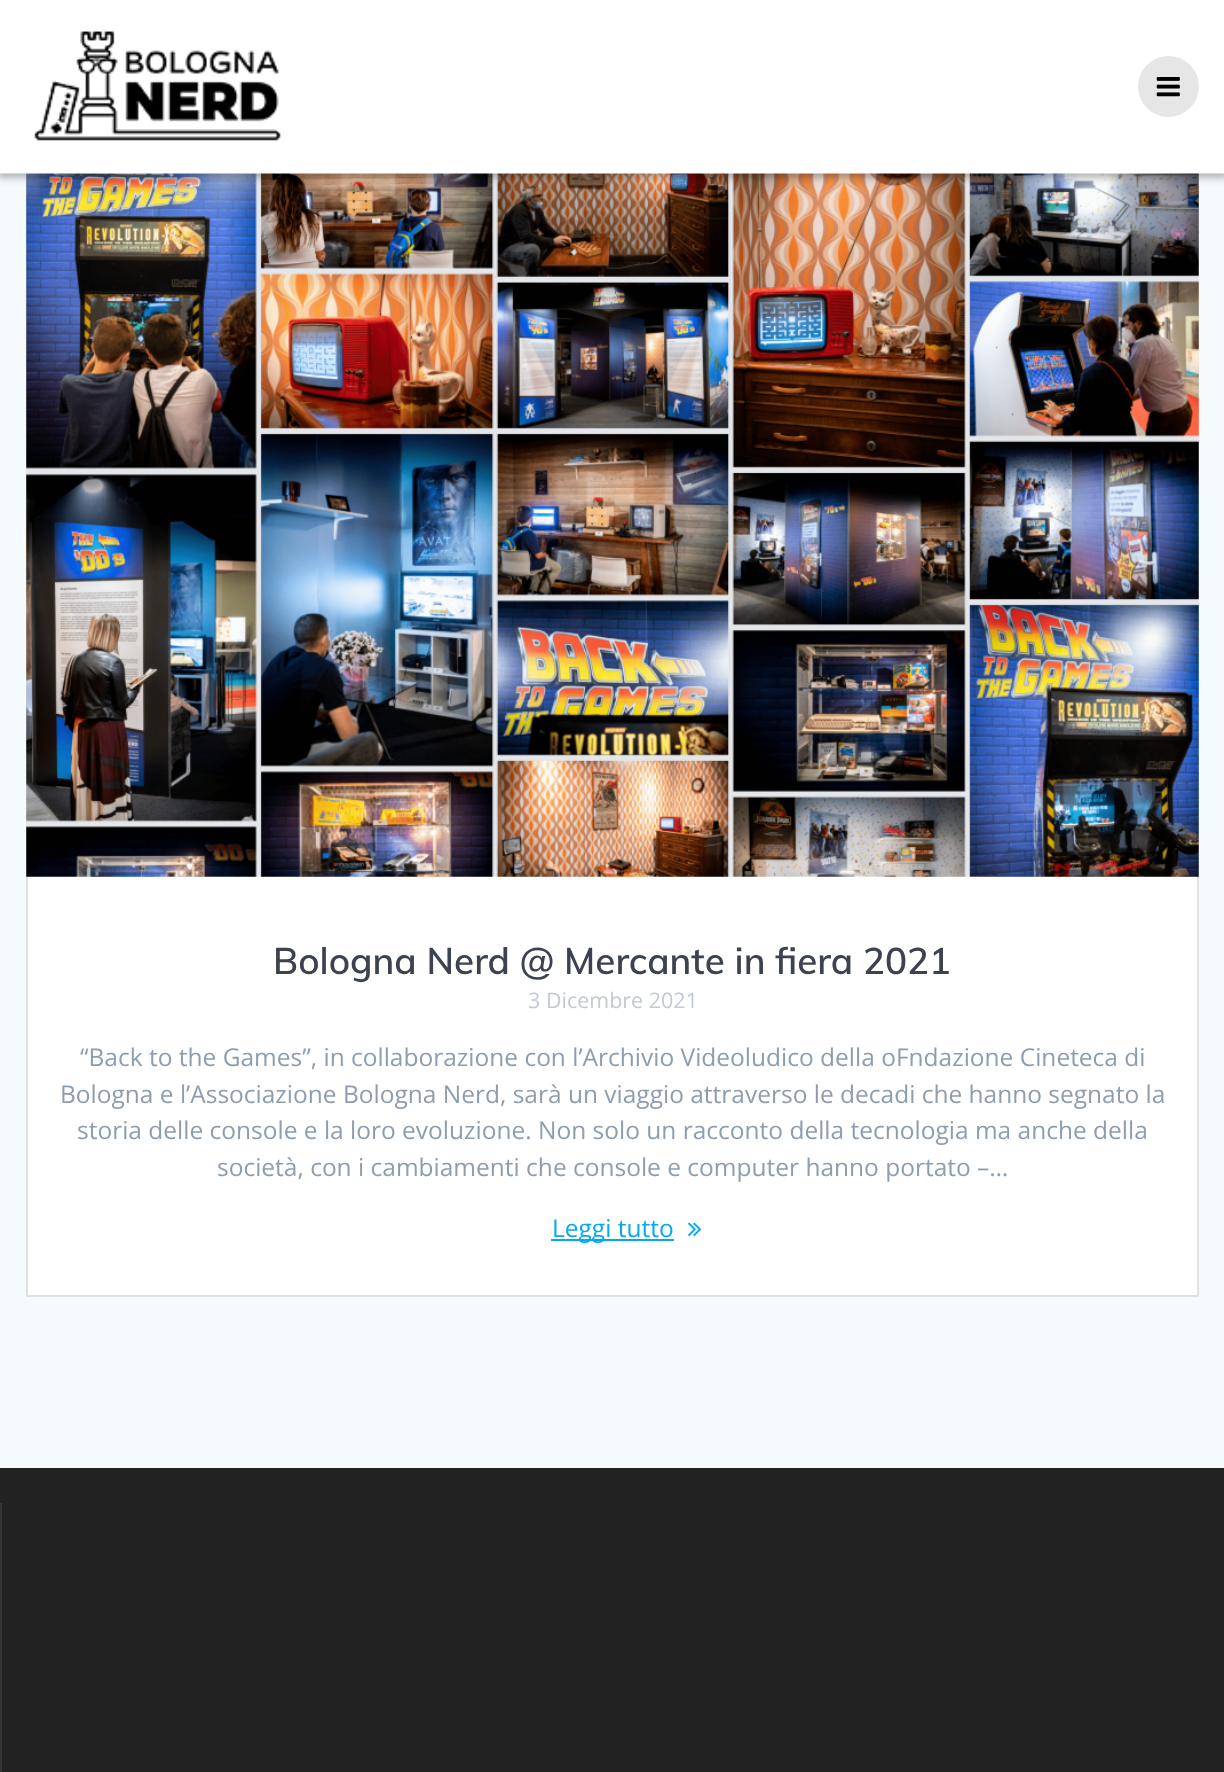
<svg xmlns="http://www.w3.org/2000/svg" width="1224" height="1772">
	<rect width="100%" height="100%" fill="#F5FAFD" />
	<rect x="28" y="876" width="1169" height="419" fill="#FFFFFF" />
	<rect x="27" y="125" width="1171" height="1171" fill="none" stroke="#E0E1E1" stroke-width="2" />
	<image x="26" y="173" width="1173" height="704" href="assets/img3.png" />
	<rect x="-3" y="-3" width="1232" height="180" fill="#000000" fill-opacity="0.33" filter="blur(4.5px)" />
	<rect x="0" y="0" width="1224" height="173" fill="#FFFFFF" />
	<rect x="0" y="173" width="1224" height="1" fill="#FFFFFF" fill-opacity="0.5" />
	<image x="34" y="31" width="247" height="110" href="assets/img1.png" />
	<circle cx="1168.5" cy="86.5" r="30.5" fill="#E6E6E6" />
	<image x="1156" y="77" width="24" height="20" href="assets/img2.png" />
	<text x="273" y="974" font-family="Muli" font-size="36.75" font-weight="600" fill="#3C424F">Bologna Nerd @ Mercante in fiera 2021</text>
	<text x="528" y="1008" font-family="Open Sans" font-size="21.5" fill="#C1C9D2">3 Dicembre 2021</text>
	<g font-family="Open Sans" font-size="24.5" fill="#8E9DAE">
		<text x="80" y="1066">“Back to the Games”, in collaborazione con l’Archivio Videoludico della oFndazione Cineteca di</text>
		<text x="60" y="1103">Bologna e l’Associazione Bologna Nerd, sarà un viaggio attraverso le decadi che hanno segnato la</text>
		<text x="77" y="1139">storia delle console e la loro evoluzione. Non solo un racconto della tecnologia ma anche della</text>
		<text x="217" y="1176">società, con i cambiamenti che console e computer hanno portato –…</text>
	</g>
	<rect x="551" y="1239" width="123" height="2" fill="#03A9F4" />
	<text x="552" y="1237" font-family="Open Sans" font-size="24.5" fill="#03A9F4">Leggi tutto</text>
	<image x="688" y="1222" width="14" height="15" href="assets/img4.png" />
	<rect x="0" y="1468" width="1224" height="304" fill="#222222" />
	<rect x="0" y="1503" width="2" height="269" fill="#353535" />
</svg>
